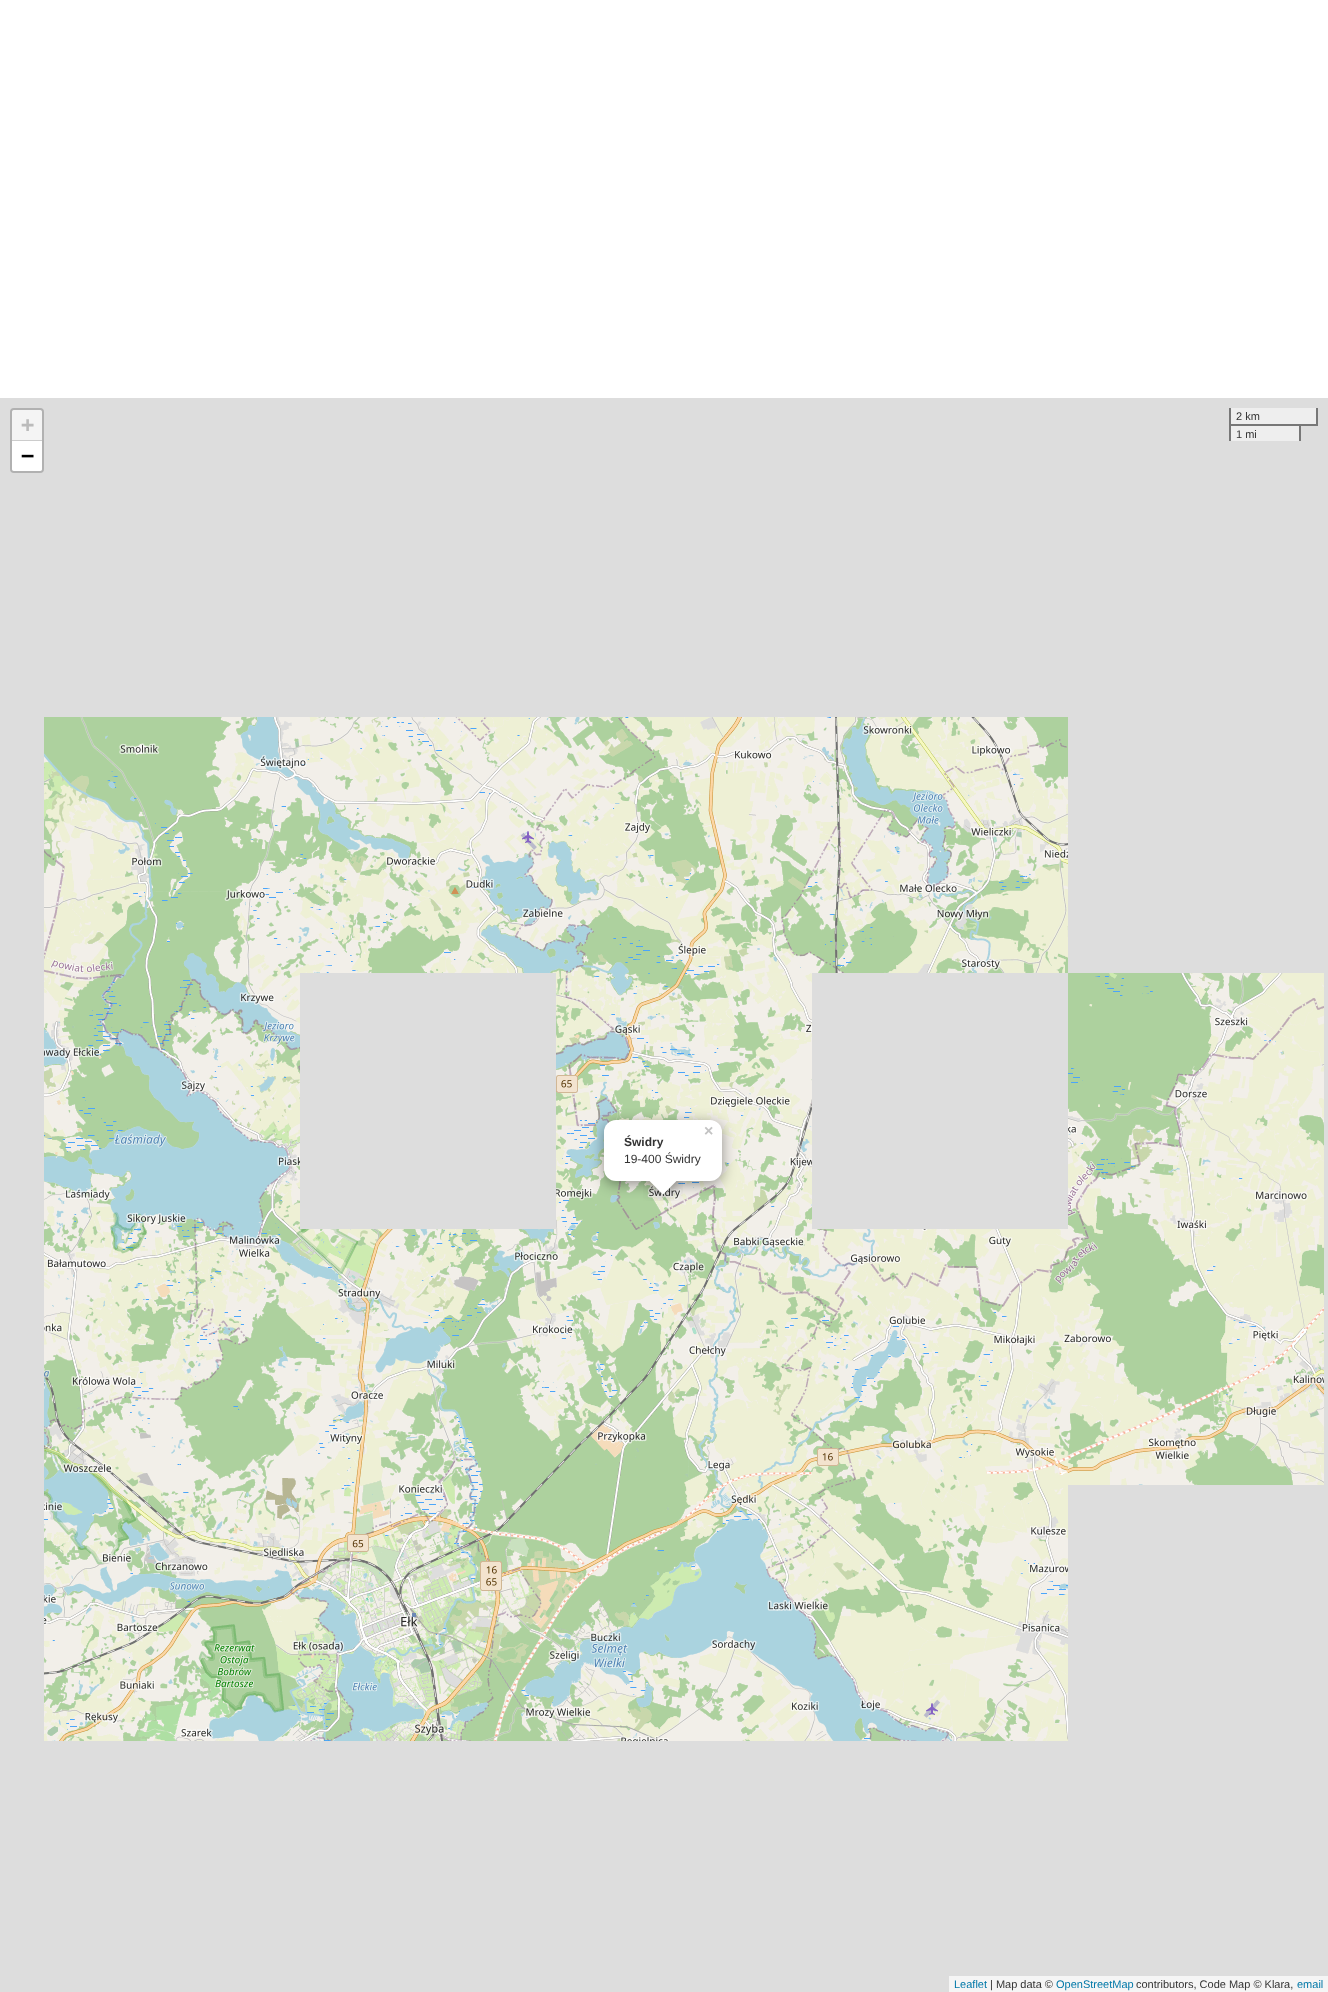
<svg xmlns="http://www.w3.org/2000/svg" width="1328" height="1992">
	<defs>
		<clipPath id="clip1"><rect x="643" y="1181" width="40" height="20" /></clipPath>
		<clipPath id="clip2"><rect x="643" y="1181" width="40" height="20" /></clipPath>
	</defs>
	<rect width="100%" height="100%" fill="#FFFFFF" />
	<rect x="0" y="398" width="1328" height="1594" fill="#DDDDDD" />
	<rect x="1231" y="426" width="68" height="15" fill="#EEEEEE" />
	<rect x="11" y="409" width="32" height="63" rx="3" fill="none" stroke="#B1B1B1" stroke-width="2" />
	<path d="M14 410H40C41 410 42 411 42 412V441H12V412C12 411 13 410 14 410Z" fill="#F4F4F4" />
	<rect x="12" y="440" width="30" height="1" fill="#CCCCCC" />
	<text x="21" y="432" font-family="DejaVu Sans Mono" font-size="22" font-weight="700" fill="#BBBBBB">+</text>
	<path d="M12 441H42V469C42 470 41 471 40 471H14C13 471 12 470 12 469Z" fill="#FFFFFF" />
	<text x="21" y="463" font-family="DejaVu Sans Mono" font-size="22" font-weight="700" fill="#000000">−</text>
	<rect x="1231" y="408" width="85" height="16" fill="#EEEEEE" />
	<rect x="1316" y="408" width="2" height="18" fill="#777777" />
	<rect x="1301" y="424" width="17" height="2" fill="#777777" />
	<rect x="1229" y="408" width="2" height="18" fill="#777777" />
	<text x="1236" y="420" font-family="Liberation Sans" font-size="11" fill="#333333">2 km</text>
	<rect x="1229" y="424" width="72" height="2" fill="#777777" />
	<rect x="1299" y="424" width="2" height="17" fill="#777777" />
	<rect x="1229" y="424" width="2" height="17" fill="#777777" />
	<text x="1236" y="438" font-family="Liberation Sans" font-size="11" fill="#333333">1 mi</text>
	<rect x="949" y="1976" width="379" height="16" fill="#F5F5F5" />
	<text x="954" y="1988" font-family="Liberation Sans" font-size="11" fill="#0078A8">Leaflet</text>
	<text x="990" y="1988" font-family="Liberation Sans" font-size="11" fill="#333333">| Map data ©</text>
	<text x="1056" y="1988" font-family="Liberation Sans" font-size="11" fill="#0078A8">OpenStreetMap</text>
	<text x="1136" y="1988" font-family="Liberation Sans" font-size="11" fill="#333333">contributors, Code Map © Klara,</text>
	<text x="1297" y="1988" font-family="Liberation Sans" font-size="11" fill="#0078A8">email</text>
	<image x="44" y="717" width="256" height="256" href="assets/img1.png" />
	<image x="300" y="717" width="256" height="256" href="assets/img2.png" />
	<image x="556" y="717" width="256" height="256" href="assets/img3.png" />
	<image x="812" y="717" width="256" height="256" href="assets/img4.png" />
	<image x="44" y="973" width="256" height="256" href="assets/img5.png" />
	<image x="556" y="973" width="256" height="256" href="assets/img6.png" />
	<image x="1068" y="973" width="256" height="256" href="assets/img7.png" />
	<image x="44" y="1229" width="256" height="256" href="assets/img8.png" />
	<image x="300" y="1229" width="256" height="256" href="assets/img9.png" />
	<image x="556" y="1229" width="256" height="256" href="assets/img10.png" />
	<image x="812" y="1229" width="256" height="256" href="assets/img11.png" />
	<image x="1068" y="1229" width="256" height="256" href="assets/img12.png" />
	<image x="44" y="1485" width="256" height="256" href="assets/img13.png" />
	<image x="300" y="1485" width="256" height="256" href="assets/img14.png" />
	<image x="556" y="1485" width="256" height="256" href="assets/img15.png" />
	<image x="812" y="1485" width="256" height="256" href="assets/img16.png" />
	<rect x="604" y="1123" width="118" height="61" rx="12" fill="#000000" fill-opacity="0.4" filter="blur(7px)" />
	<rect x="604" y="1120" width="118" height="61" rx="12" fill="#FFFFFF" />
	<text x="704" y="1136" font-family="Liberation Sans" font-size="16" font-weight="700" fill="#C3C3C3">×</text>
	<text x="624" y="1146" font-family="Liberation Sans" font-size="12" font-weight="700" fill="#333333">Świdry</text>
	<text x="624" y="1163" font-family="Liberation Sans" font-size="12" fill="#333333">19-400 Świdry</text>
	<g clip-path="url(#clip1)">
		<rect x="654" y="1174" width="19" height="19" fill="#000000" fill-opacity="0.4" filter="blur(7px)" />
	</g>
	<g clip-path="url(#clip2)">
		<path d="M663 1167.5L676.5 1181L663 1194.5L649.5 1181Z" fill="#FFFFFF" />
	</g>
</svg>
